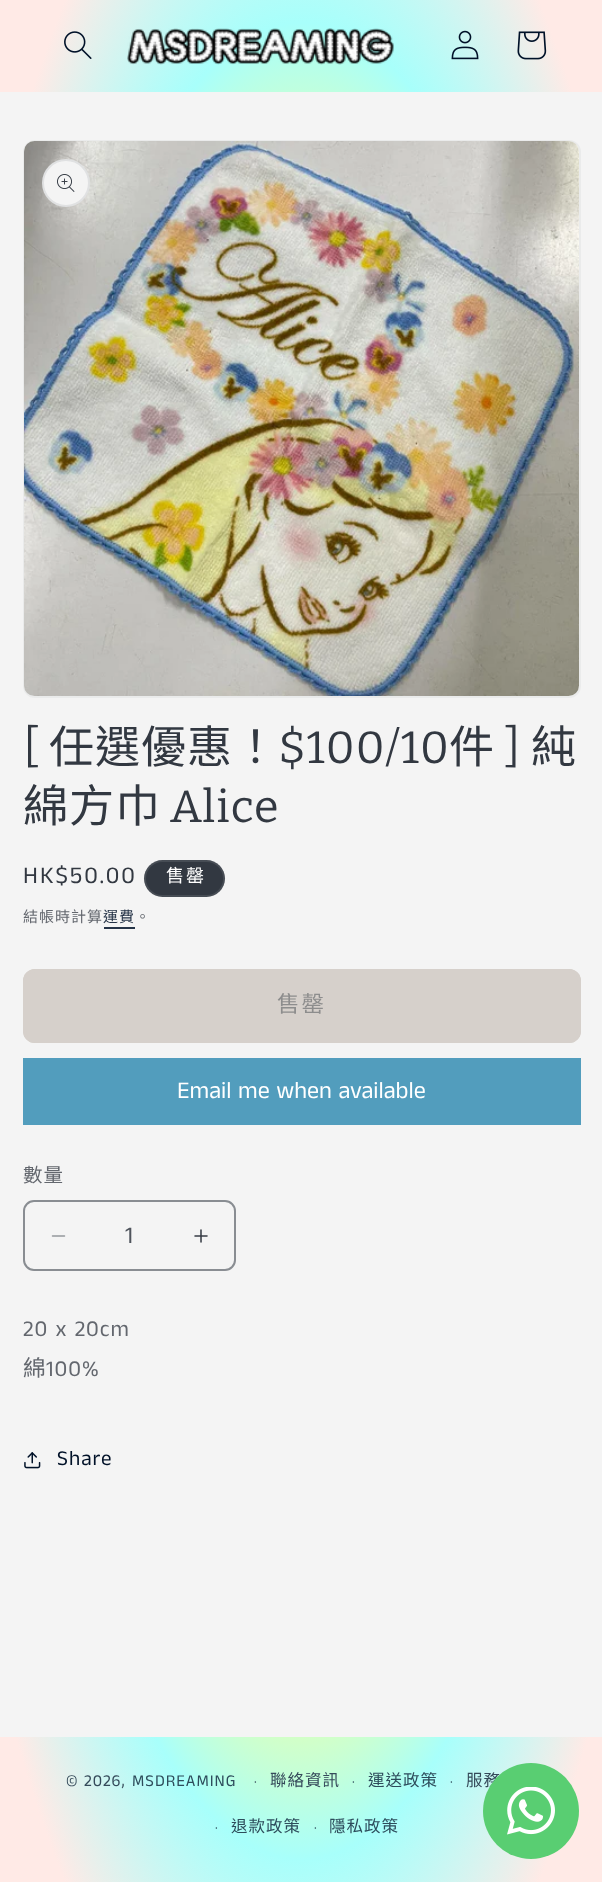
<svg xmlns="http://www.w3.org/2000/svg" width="602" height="1882">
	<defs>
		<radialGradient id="g1" gradientUnits="userSpaceOnUse" cx="0" cy="0" r="1" gradientTransform="matrix(426 0 0 1331 302 941)"><stop offset="0" stop-color="#EDFFA7" /><stop offset="0.54" stop-color="#EDFFA7" /><stop offset="0.69" stop-color="#A8FFFB" /><stop offset="0.9" stop-color="#FFEAE6" /></radialGradient>
	</defs>
	<rect width="100%" height="100%" fill="#F4F4F4" />
	<rect x="0" y="0" width="602" height="92" fill="url(#g1)" />
	<image x="64" y="31" width="28" height="28" href="assets/img1.png" />
	<image x="127" y="28" width="267" height="37" href="assets/img2.png" />
	<image x="451" y="30" width="28" height="30" href="assets/img3.png" />
	<image x="517" y="31" width="30" height="29" href="assets/img4.png" />
	<rect x="24" y="141" width="556" height="556" rx="11" fill="none" stroke="#EAEBEB" stroke-width="2" />
	<image x="24" y="141" width="555" height="555" href="assets/img5.png" />
	<circle cx="66" cy="183" r="24" fill="#F4F4F4" />
	<circle cx="66" cy="183" r="23" fill="none" stroke="#323841" stroke-opacity="0.1" stroke-width="2" />
	<image x="57" y="174" width="18" height="18" href="assets/img6.png" />
	<text x="23" y="763" font-family="Bitter" font-size="45" letter-spacing="1" fill="#323841">[</text>
	<text x="49" y="763" font-family="Noto Sans CJK TC" font-size="45" letter-spacing="1" fill="#323841">任選優惠！</text>
	<text x="278" y="763" font-family="Bitter" font-size="45" letter-spacing="1" fill="#323841">$100/10</text>
	<text x="449" y="763" font-family="Noto Sans CJK TC" font-size="45" letter-spacing="1" fill="#323841">件</text>
	<text x="505" y="763" font-family="Bitter" font-size="45" letter-spacing="1" fill="#323841">]</text>
	<g font-family="Noto Sans CJK TC" font-size="45" letter-spacing="1" fill="#323841">
		<text x="531" y="763">純</text>
		<text x="23" y="822">綿方巾</text>
	</g>
	<text x="170" y="822" font-family="Bitter" font-size="45" letter-spacing="1" fill="#323841">Alice</text>
	<text x="23" y="883" font-family="Anek Tamil" font-size="24" letter-spacing="2" fill="#323841">HK$50.00</text>
	<rect x="144" y="860" width="81" height="37" rx="18.5" fill="#323841" />
	<rect x="145" y="861" width="79" height="35" rx="17.5" fill="none" stroke="#FFFFFF" stroke-opacity="0.1" stroke-width="2" />
	<text x="166" y="882" font-family="Noto Sans CJK TC" font-size="18" letter-spacing="2" fill="#FFFFFF">售罄</text>
	<text x="23" y="922" font-family="Noto Sans CJK TC" font-size="15" letter-spacing="1" fill="#63676E">結帳時計算</text>
	<text x="103" y="922" font-family="Noto Sans CJK TC" font-size="15" letter-spacing="1" fill="#253347">運費</text>
	<rect x="104" y="927" width="31" height="2" fill="#253347" />
	<text x="135" y="922" font-family="Noto Sans CJK TC" font-size="15" letter-spacing="1" fill="#63676E">。</text>
	<rect x="23" y="969" width="558" height="74" rx="12" fill="#D6D0CB" />
	<rect x="24.5" y="970.5" width="555" height="71" rx="10.5" fill="none" stroke="#D6D0CB" stroke-width="3" />
	<text x="277" y="1012" font-family="Noto Sans CJK TC" font-size="22.5" letter-spacing="2" fill="#8D8D8D">售罄</text>
	<rect x="23" y="1058" width="558" height="67" fill="#529DBD" />
	<text x="177" y="1098" font-family="Anek Tamil" font-size="24" fill="#FFFFFF">Email me when available</text>
	<text x="23" y="1182" font-family="Noto Sans CJK TC" font-size="19.5" letter-spacing="1" fill="#63676E">數量</text>
	<image x="51" y="1235" width="15" height="2" href="assets/img7.png" />
	<image x="194" y="1229" width="14" height="14" href="assets/img8.png" />
	<rect x="24" y="1201" width="211" height="69" rx="10" fill="none" stroke="#898D92" stroke-width="2" />
	<text x="125" y="1243" font-family="Anek Tamil" font-size="24" fill="#4F545C">1</text>
	<text x="23" y="1336" font-family="Anek Tamil" font-size="22.5" letter-spacing="1" fill="#63676E">20 x 20cm</text>
	<text x="23" y="1376" font-family="Noto Sans CJK TC" font-size="22.5" letter-spacing="1" fill="#63676E">綿</text>
	<text x="46" y="1376" font-family="Anek Tamil" font-size="22.5" letter-spacing="1" fill="#63676E">100%</text>
	<image x="24" y="1452" width="17" height="17" href="assets/img9.png" />
	<text x="57" y="1465" font-family="Anek Tamil" font-size="21" letter-spacing="1" fill="#001128">Share</text>
	<rect x="0" y="1737" width="602" height="145" fill="url(#g1)" />
	<text x="66" y="1786" font-family="Anek Tamil" font-size="16.5" letter-spacing="1" fill="#354A5A">© 2026,</text>
	<text x="132" y="1786" font-family="Anek Tamil" font-size="16.5" letter-spacing="1" fill="#2D4C5B">MSDREAMING</text>
	<text x="254" y="1786" font-family="Anek Tamil" font-size="15" letter-spacing="1" fill="#354A5A">·</text>
	<text x="270" y="1786" font-family="Noto Sans CJK TC" font-size="16.5" letter-spacing="1" fill="#354A5A">聯絡資訊</text>
	<text x="352" y="1786" font-family="Anek Tamil" font-size="15" letter-spacing="1" fill="#2D4C5B">·</text>
	<text x="368" y="1786" font-family="Noto Sans CJK TC" font-size="16.5" letter-spacing="1" fill="#2D4C5B">運送政策</text>
	<text x="450" y="1786" font-family="Anek Tamil" font-size="15" letter-spacing="1" fill="#2D4C5B">·</text>
	<text x="466" y="1786" font-family="Noto Sans CJK TC" font-size="16.5" letter-spacing="1" fill="#354A5A">服務</text>
	<text x="215" y="1832" font-family="Anek Tamil" font-size="15" letter-spacing="1" fill="#2D4C5B">·</text>
	<text x="231" y="1832" font-family="Noto Sans CJK TC" font-size="16.5" letter-spacing="1" fill="#2D4C5B">退款政策</text>
	<text x="314" y="1832" font-family="Anek Tamil" font-size="15" letter-spacing="1" fill="#2D4C5B">·</text>
	<text x="329" y="1832" font-family="Noto Sans CJK TC" font-size="16.5" letter-spacing="1" fill="#2D4C5B">隱私政策</text>
	<circle cx="531" cy="1811" r="48" fill="#59CE72" />
	<image x="507" y="1787" width="48" height="48" href="assets/img10.png" />
</svg>
